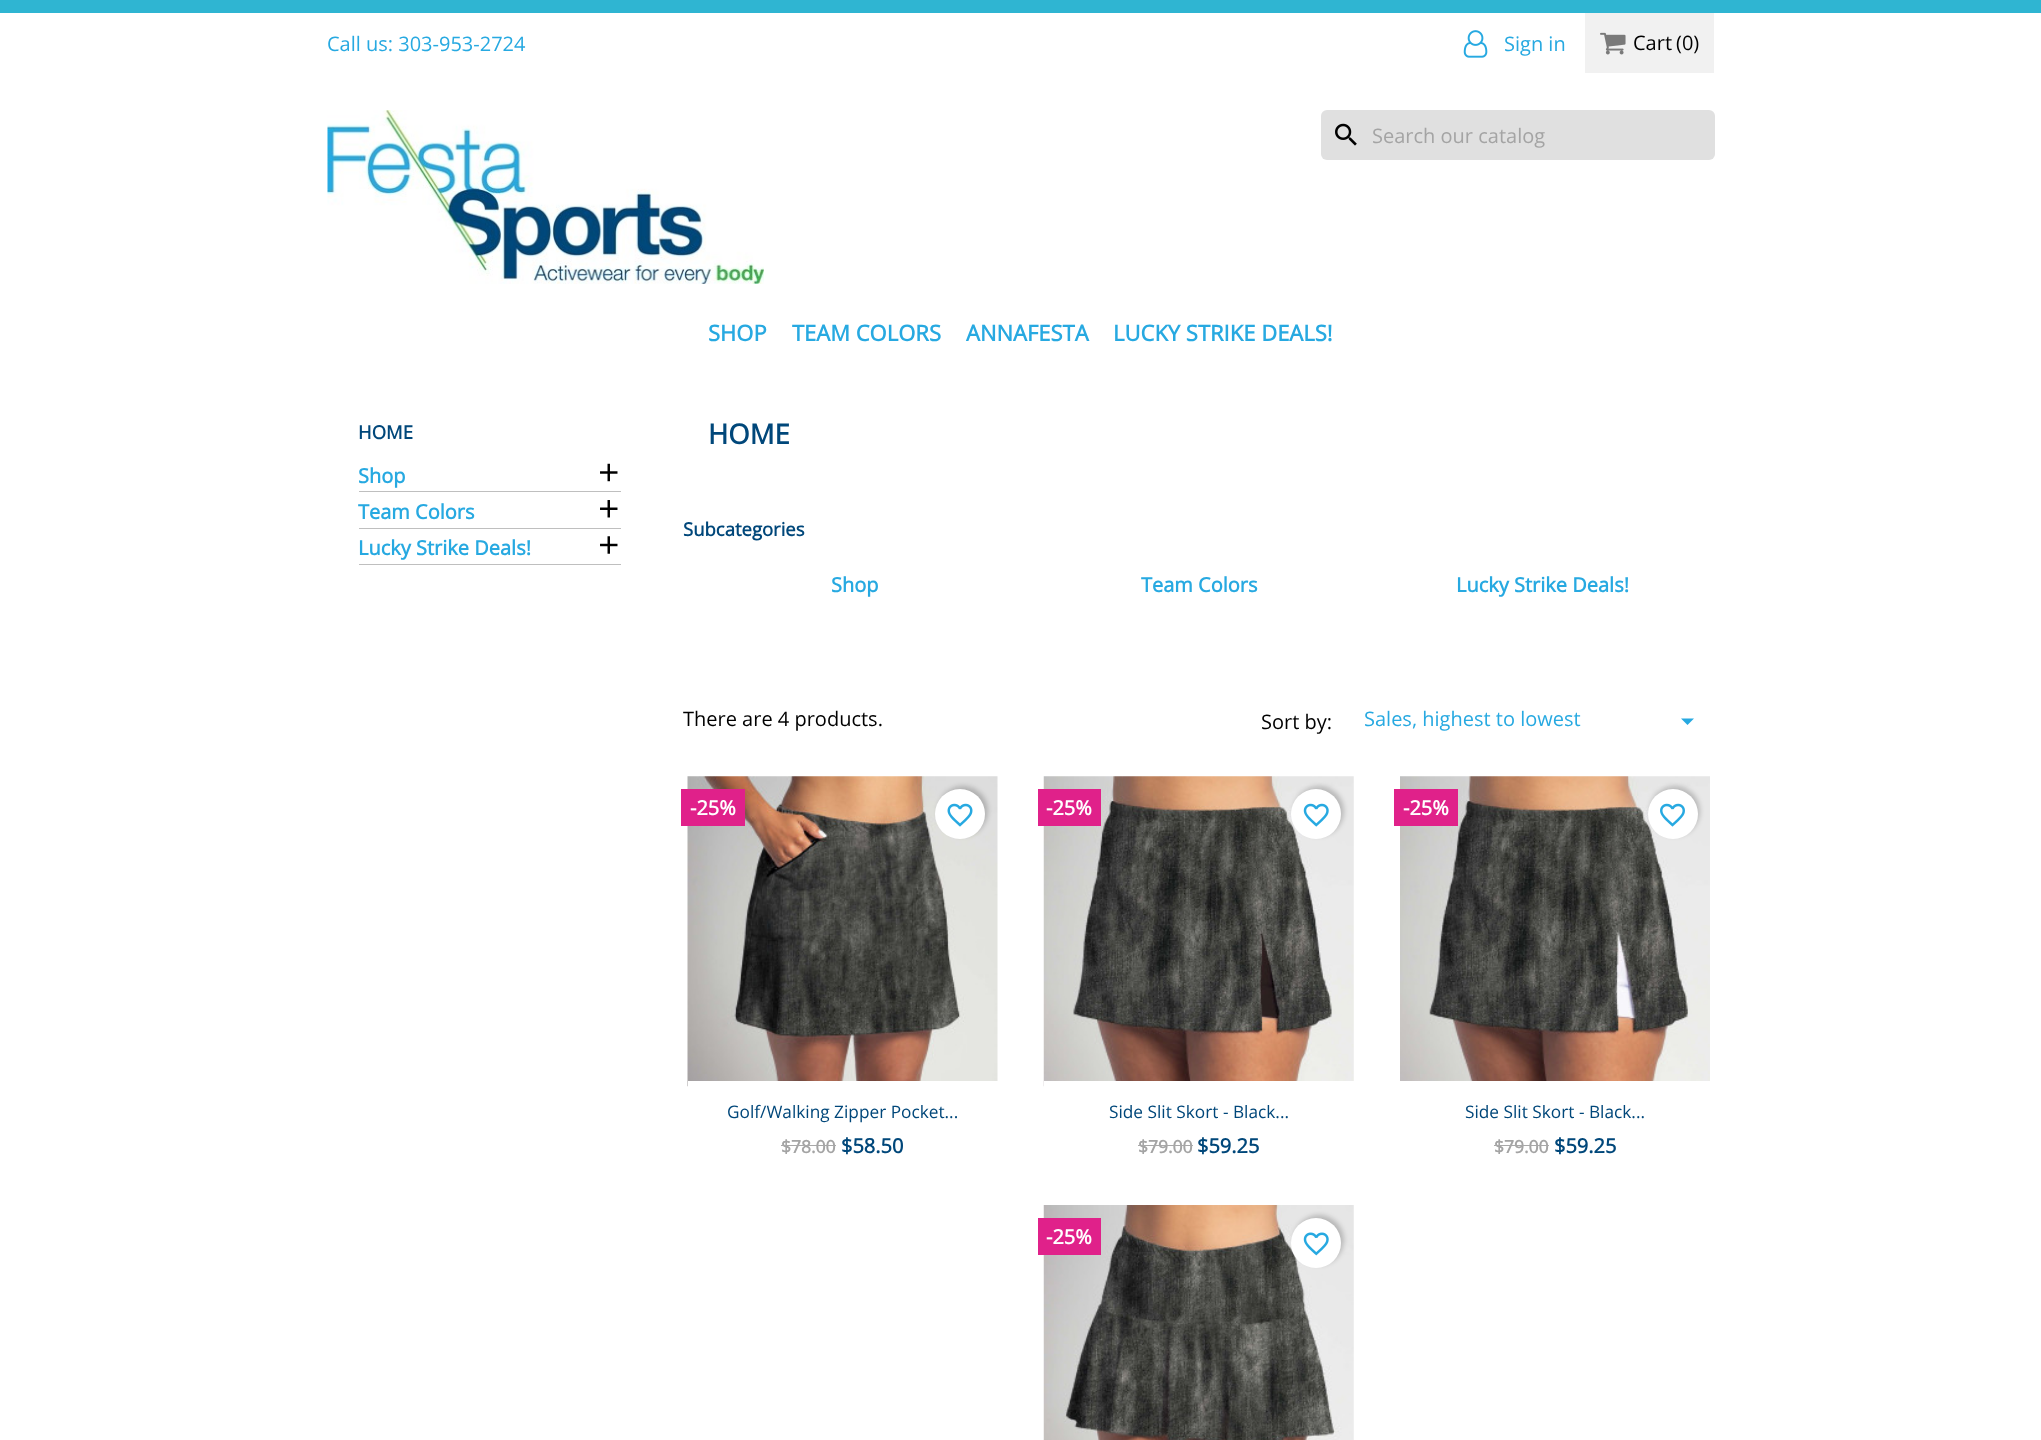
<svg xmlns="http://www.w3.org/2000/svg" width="2041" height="1440">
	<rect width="100%" height="100%" fill="#FFFFFF" />
	<rect x="0" y="0" width="2041" height="13" fill="#2FB5D2" />
	<text x="327" y="51" font-family="Open Sans" font-size="20" fill="#27A9E1">Call us: 303-953-2724</text>
	<image x="1463" y="30" width="25" height="28" href="assets/img1.png" />
	<text x="1504" y="51" font-family="Open Sans" font-size="20" fill="#27A9E1">Sign in</text>
	<rect x="1585" y="13" width="129" height="60" fill="#F1F1F1" />
	<image x="1600" y="32" width="26" height="23" href="assets/img2.png" />
	<g font-family="Open Sans" font-size="20" fill="#000000">
		<text x="1633" y="50">Cart</text>
		<text x="1676" y="50">(0)</text>
	</g>
	<image x="327" y="110" width="437" height="174" href="assets/img3.png" />
	<rect x="1321" y="110" width="394" height="50" rx="6" fill="#E0E0E0" />
	<image x="1335" y="123" width="22" height="23" href="assets/img4.png" />
	<text x="1372" y="143" font-family="Open Sans" font-size="20" fill="#A4A4A4">Search our catalog</text>
	<g font-family="Open Sans" font-size="22" font-weight="700" fill="#27A9E1">
		<text x="708" y="341">SHOP</text>
		<text x="792" y="341">TEAM COLORS</text>
		<text x="966" y="341">ANNAFESTA</text>
		<text x="1113" y="341">LUCKY STRIKE DEALS!</text>
	</g>
	<text x="358" y="439" font-family="Open Sans" font-size="18.5" font-weight="700" fill="#00477A">HOME</text>
	<rect x="359" y="491" width="262" height="1" fill="#BFBFBF" />
	<text x="358" y="483" font-family="Open Sans" font-size="20" font-weight="700" fill="#27A9E1">Shop</text>
	<image x="600" y="463" width="18" height="19" href="assets/img5.png" />
	<rect x="359" y="528" width="262" height="1" fill="#BFBFBF" />
	<text x="358" y="519" font-family="Open Sans" font-size="20" font-weight="700" fill="#27A9E1">Team Colors</text>
	<image x="600" y="500" width="18" height="18" href="assets/img6.png" />
	<rect x="359" y="564" width="262" height="1" fill="#BFBFBF" />
	<text x="358" y="555" font-family="Open Sans" font-size="20" font-weight="700" fill="#27A9E1">Lucky Strike Deals!</text>
	<image x="600" y="536" width="18" height="18" href="assets/img7.png" />
	<text x="708" y="444" font-family="Open Sans" font-size="27.5" font-weight="700" fill="#00477A">HOME</text>
	<text x="683" y="536" font-family="Open Sans" font-size="18.5" font-weight="700" fill="#00477A">Subcategories</text>
	<g font-family="Open Sans" font-size="20" font-weight="700" fill="#27A9E1">
		<text x="831" y="592">Shop</text>
		<text x="1141" y="592">Team Colors</text>
		<text x="1456" y="592">Lucky Strike Deals!</text>
	</g>
	<g font-family="Open Sans" font-size="20" fill="#000000">
		<text x="683" y="726">There are 4 products.</text>
		<text x="1261" y="729">Sort by:</text>
	</g>
	<text x="1364" y="726" font-family="Open Sans" font-size="20" fill="#27A9E1">Sales, highest to lowest</text>
	<path d="M1681 718.5H1694L1687.5 725Z" fill="#27A9E1" />
	<image x="687" y="776" width="311" height="311" href="assets/img8.png" />
	<rect x="681" y="789" width="64" height="37" fill="#E0218A" />
	<text x="690" y="815" font-family="Open Sans" font-size="20" font-weight="700" fill="#FFFFFF">-25%</text>
	<rect x="938" y="786" width="50" height="50" rx="25" fill="#000000" fill-opacity="0.2" filter="blur(2.5px)" />
	<circle cx="960" cy="814" r="25" fill="#FFFFFF" />
	<image x="947" y="803" width="26" height="24" href="assets/img9.png" />
	<rect x="688" y="1081" width="310" height="6" fill="#FFFFFF" />
	<text x="727" y="1118" font-family="Open Sans" font-size="17.25" fill="#00477A">Golf/Walking Zipper Pocket...</text>
	<text x="781" y="1153" font-family="Open Sans" font-size="17.5" font-weight="700" fill="#A4A4A4">$78.00</text>
	<rect x="781" y="1145" width="55" height="1" fill="#A8A8A8" />
	<text x="841" y="1153" font-family="Open Sans" font-size="20" font-weight="700" fill="#00477A">$58.50</text>
	<image x="1043" y="776" width="311" height="311" href="assets/img10.png" />
	<rect x="1038" y="789" width="63" height="37" fill="#E0218A" />
	<text x="1046" y="815" font-family="Open Sans" font-size="20" font-weight="700" fill="#FFFFFF">-25%</text>
	<rect x="1294" y="786" width="50" height="50" rx="25" fill="#000000" fill-opacity="0.2" filter="blur(2.5px)" />
	<circle cx="1316" cy="814" r="25" fill="#FFFFFF" />
	<image x="1303" y="803" width="26" height="24" href="assets/img11.png" />
	<rect x="1044" y="1081" width="310" height="6" fill="#FFFFFF" />
	<text x="1109" y="1118" font-family="Open Sans" font-size="17.25" fill="#00477A">Side Slit Skort - Black...</text>
	<text x="1138" y="1153" font-family="Open Sans" font-size="17.5" font-weight="700" fill="#A4A4A4">$79.00</text>
	<rect x="1138" y="1145" width="55" height="1" fill="#A8A8A8" />
	<text x="1197" y="1153" font-family="Open Sans" font-size="20" font-weight="700" fill="#00477A">$59.25</text>
	<image x="1400" y="776" width="310" height="305" href="assets/img12.png" />
	<rect x="1394" y="789" width="64" height="37" fill="#E0218A" />
	<text x="1403" y="815" font-family="Open Sans" font-size="20" font-weight="700" fill="#FFFFFF">-25%</text>
	<rect x="1650" y="786" width="50" height="50" rx="25" fill="#000000" fill-opacity="0.2" filter="blur(2.5px)" />
	<circle cx="1673" cy="814" r="25" fill="#FFFFFF" />
	<image x="1660" y="803" width="25" height="24" href="assets/img13.png" />
	<text x="1465" y="1118" font-family="Open Sans" font-size="17.25" fill="#00477A">Side Slit Skort - Black...</text>
	<text x="1494" y="1153" font-family="Open Sans" font-size="17.5" font-weight="700" fill="#A4A4A4">$79.00</text>
	<rect x="1494" y="1145" width="55" height="1" fill="#A8A8A8" />
	<text x="1554" y="1153" font-family="Open Sans" font-size="20" font-weight="700" fill="#00477A">$59.25</text>
	<image x="1043" y="1205" width="311" height="235" href="assets/img14.png" />
	<rect x="1038" y="1218" width="63" height="37" fill="#E0218A" />
	<text x="1046" y="1244" font-family="Open Sans" font-size="20" font-weight="700" fill="#FFFFFF">-25%</text>
	<rect x="1294" y="1215" width="50" height="50" rx="25" fill="#000000" fill-opacity="0.2" filter="blur(2.5px)" />
	<circle cx="1316" cy="1243" r="25" fill="#FFFFFF" />
	<image x="1303" y="1232" width="26" height="24" href="assets/img15.png" />
</svg>
